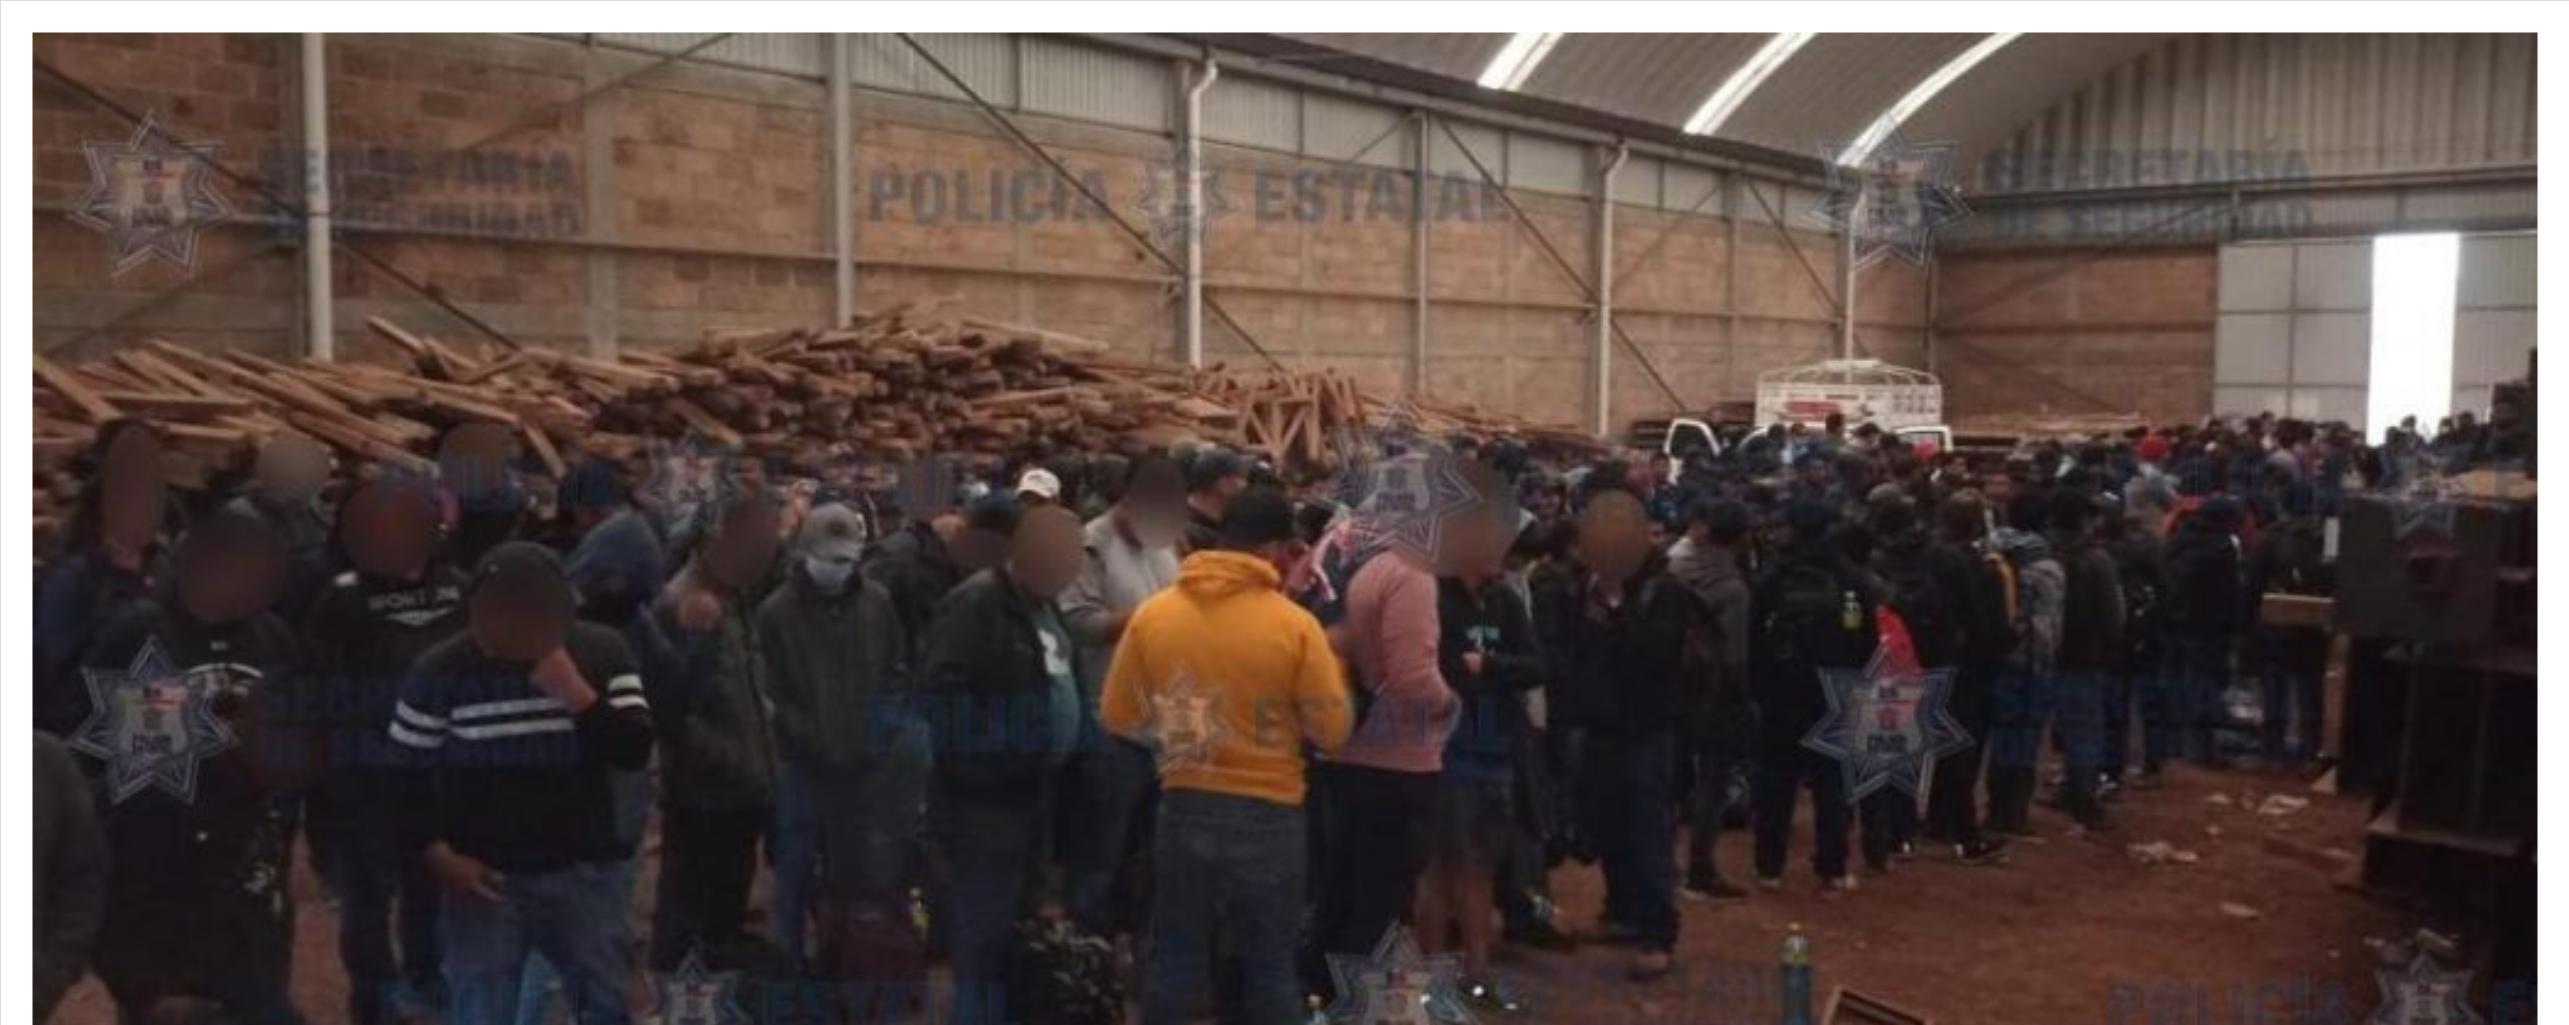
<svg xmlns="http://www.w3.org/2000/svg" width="2569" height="1025">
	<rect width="100%" height="100%" fill="#FFFFFF" />
	<rect x="0.5" y="0.5" width="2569" height="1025" fill="none" stroke="#DCDCDE" />
	<image x="32" y="32" width="2506" height="993" href="assets/img1.png" />
</svg>
